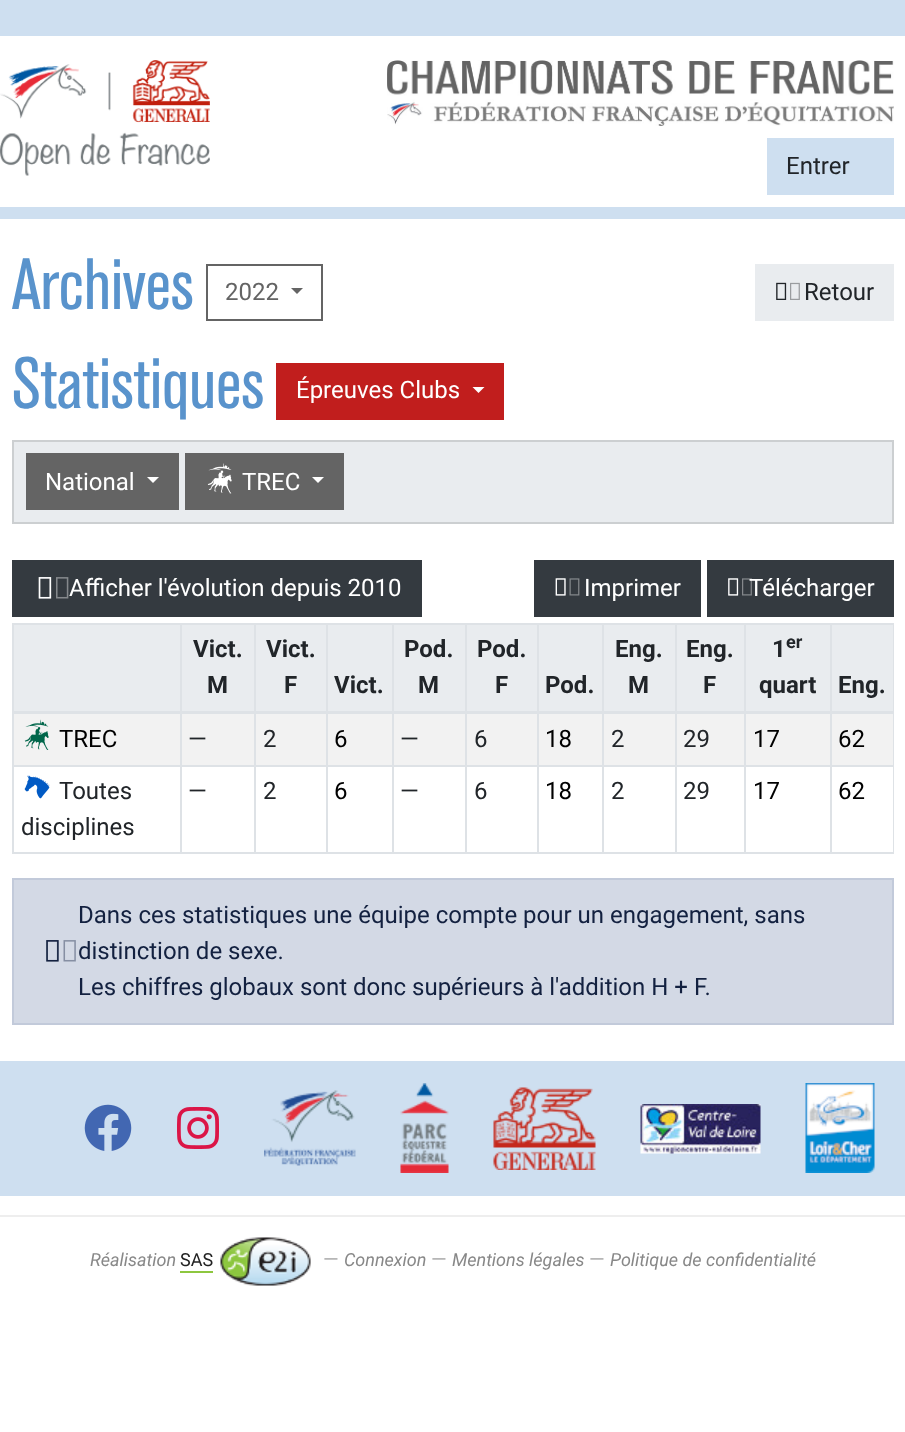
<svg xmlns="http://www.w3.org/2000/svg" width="905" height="1432">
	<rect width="100%" height="100%" fill="#FFFFFF" />
	<rect x="0" y="0" width="905" height="36" fill="#CEDFF0" />
	<image x="0" y="60" width="210" height="116" href="assets/img1.png" />
	<image x="387" y="60" width="507" height="66" href="assets/img2.png" />
	<rect x="767" y="138" width="127" height="57" fill="#CEDFF0" />
	<text x="786" y="174" font-family="Roboto" font-size="24" fill="#212529">Entrer</text>
	<rect x="0" y="207" width="905" height="12" fill="#CEDFF0" />
	<text x="12" y="309" font-family="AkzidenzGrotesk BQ" font-size="72" font-weight="500" fill="#5993CC">Archives</text>
	<rect x="207" y="265" width="115" height="55" fill="none" stroke="#646464" stroke-width="2" />
	<text x="225" y="300" font-family="Roboto" font-size="24" fill="#646464">2022</text>
	<path d="M291 288H303L297 294Z" fill="#646464" />
	<rect x="755" y="264" width="139" height="57" fill="#E9ECEF" />
	<image x="776" y="282" width="11" height="18" href="assets/img3.png" />
	<image x="776" y="282" width="24" height="18" href="assets/img4.png" />
	<text x="804" y="300" font-family="Roboto" font-size="24" fill="#212529">Retour</text>
	<text x="12" y="408" font-family="AkzidenzGrotesk BQ" font-size="72" font-weight="500" fill="#5993CC">Statistiques</text>
	<rect x="276" y="363" width="228" height="57" fill="#C11E1D" />
	<text x="296" y="398" font-family="Roboto" font-size="24" fill="#FFFFFF">Épreuves Clubs</text>
	<path d="M472.5 387H484.5L478.5 393Z" fill="#FFFFFF" />
	<rect x="13" y="441" width="880" height="82" fill="#E9ECEF" stroke="#CCCFD1" stroke-width="2" />
	<rect x="26" y="453" width="153" height="57" fill="#646464" />
	<text x="45" y="490" font-family="Roboto" font-size="24" fill="#FFFFFF">National</text>
	<path d="M147 477H159L153 483Z" fill="#FFFFFF" />
	<rect x="185" y="453" width="159" height="57" fill="#646464" />
	<image x="207" y="463" width="25" height="31" href="assets/img5.png" />
	<text x="242" y="490" font-family="Roboto" font-size="24" fill="#FFFFFF">TREC</text>
	<path d="M312 477H324L318 483Z" fill="#FFFFFF" />
	<rect x="12" y="560" width="410" height="57" fill="#343A40" />
	<image x="38" y="577" width="14" height="22" href="assets/img6.png" />
	<image x="38" y="577" width="31" height="22" href="assets/img7.png" />
	<text x="69" y="596" font-family="Roboto" font-size="24" fill="#FFFFFF">Afficher l'évolution depuis 2010</text>
	<rect x="534" y="560" width="167" height="57" fill="#343A40" />
	<image x="555" y="578" width="11" height="18" href="assets/img8.png" />
	<image x="555" y="578" width="25" height="18" href="assets/img9.png" />
	<text x="584" y="596" font-family="Roboto" font-size="24" fill="#FFFFFF">Imprimer</text>
	<rect x="707" y="560" width="187" height="57" fill="#343A40" />
	<image x="728" y="578" width="11" height="18" href="assets/img10.png" />
	<text x="749" y="596" font-family="Roboto" font-size="24" fill="#FFFFFF">Télécharger</text>
	<image x="728" y="578" width="24" height="18" href="assets/img11.png" />
	<rect x="14" y="625" width="879" height="86" fill="#E9ECEF" />
	<rect x="830" y="623" width="64" height="2" fill="#DEE2E6" />
	<rect x="14" y="714" width="879" height="51" fill="#F2F2F2" />
	<rect x="830" y="765" width="64" height="2" fill="#DEE2E6" />
	<rect x="893" y="711" width="1" height="143" fill="#DEE2E6" />
	<rect x="830" y="852" width="64" height="2" fill="#DEE2E6" />
	<rect x="830" y="765" width="2" height="89" fill="#DEE2E6" />
	<rect x="744" y="765" width="87" height="2" fill="#DEE2E6" />
	<rect x="830" y="711" width="2" height="56" fill="#DEE2E6" />
	<rect x="830" y="623" width="2" height="90" fill="#DEE2E6" />
	<rect x="744" y="623" width="87" height="2" fill="#DEE2E6" />
	<rect x="744" y="852" width="87" height="2" fill="#DEE2E6" />
	<rect x="744" y="765" width="2" height="89" fill="#DEE2E6" />
	<rect x="675" y="765" width="71" height="2" fill="#DEE2E6" />
	<rect x="744" y="711" width="2" height="56" fill="#DEE2E6" />
	<rect x="744" y="623" width="2" height="90" fill="#DEE2E6" />
	<rect x="675" y="623" width="71" height="2" fill="#DEE2E6" />
	<rect x="675" y="852" width="71" height="2" fill="#DEE2E6" />
	<rect x="675" y="765" width="2" height="89" fill="#DEE2E6" />
	<rect x="602" y="765" width="75" height="2" fill="#DEE2E6" />
	<rect x="675" y="711" width="2" height="56" fill="#DEE2E6" />
	<rect x="675" y="623" width="2" height="90" fill="#DEE2E6" />
	<rect x="602" y="623" width="75" height="2" fill="#DEE2E6" />
	<rect x="602" y="852" width="75" height="2" fill="#DEE2E6" />
	<rect x="602" y="765" width="2" height="89" fill="#DEE2E6" />
	<rect x="537" y="765" width="66" height="2" fill="#DEE2E6" />
	<rect x="602" y="711" width="2" height="56" fill="#DEE2E6" />
	<rect x="602" y="623" width="2" height="90" fill="#DEE2E6" />
	<rect x="537" y="623" width="66" height="2" fill="#DEE2E6" />
	<rect x="537" y="852" width="66" height="2" fill="#DEE2E6" />
	<rect x="537" y="765" width="2" height="89" fill="#DEE2E6" />
	<rect x="465" y="765" width="74" height="2" fill="#DEE2E6" />
	<rect x="537" y="711" width="2" height="56" fill="#DEE2E6" />
	<rect x="537" y="623" width="2" height="90" fill="#DEE2E6" />
	<rect x="465" y="623" width="74" height="2" fill="#DEE2E6" />
	<rect x="465" y="852" width="74" height="2" fill="#DEE2E6" />
	<rect x="465" y="765" width="2" height="89" fill="#DEE2E6" />
	<rect x="392" y="765" width="75" height="2" fill="#DEE2E6" />
	<rect x="465" y="711" width="2" height="56" fill="#DEE2E6" />
	<rect x="465" y="623" width="2" height="90" fill="#DEE2E6" />
	<rect x="392" y="623" width="75" height="2" fill="#DEE2E6" />
	<rect x="392" y="852" width="75" height="2" fill="#DEE2E6" />
	<rect x="392" y="765" width="2" height="89" fill="#DEE2E6" />
	<rect x="326" y="765" width="67" height="2" fill="#DEE2E6" />
	<rect x="392" y="711" width="2" height="56" fill="#DEE2E6" />
	<rect x="392" y="623" width="2" height="90" fill="#DEE2E6" />
	<rect x="326" y="623" width="67" height="2" fill="#DEE2E6" />
	<rect x="326" y="852" width="67" height="2" fill="#DEE2E6" />
	<rect x="326" y="765" width="2" height="89" fill="#DEE2E6" />
	<rect x="254" y="765" width="73" height="2" fill="#DEE2E6" />
	<rect x="326" y="711" width="2" height="56" fill="#DEE2E6" />
	<rect x="326" y="623" width="2" height="90" fill="#DEE2E6" />
	<rect x="254" y="623" width="73" height="2" fill="#DEE2E6" />
	<rect x="254" y="852" width="73" height="2" fill="#DEE2E6" />
	<rect x="254" y="765" width="2" height="89" fill="#DEE2E6" />
	<rect x="180" y="765" width="75" height="2" fill="#DEE2E6" />
	<rect x="254" y="711" width="2" height="56" fill="#DEE2E6" />
	<rect x="254" y="623" width="2" height="90" fill="#DEE2E6" />
	<rect x="180" y="623" width="75" height="2" fill="#DEE2E6" />
	<rect x="180" y="852" width="75" height="2" fill="#DEE2E6" />
	<rect x="180" y="765" width="2" height="89" fill="#DEE2E6" />
	<rect x="12" y="765" width="170" height="2" fill="#DEE2E6" />
	<rect x="180" y="711" width="2" height="56" fill="#DEE2E6" />
	<rect x="180" y="623" width="2" height="90" fill="#DEE2E6" />
	<rect x="12" y="623" width="170" height="2" fill="#DEE2E6" />
	<rect x="12" y="852" width="170" height="2" fill="#DEE2E6" />
	<rect x="12" y="711" width="2" height="143" fill="#DEE2E6" />
	<rect x="12" y="623" width="2" height="90" fill="#DEE2E6" />
	<g font-family="Roboto" font-size="24" font-weight="700" fill="#212529">
		<text x="193" y="657">Vict.</text>
		<text x="207" y="693">M</text>
		<text x="266" y="657">Vict.</text>
		<text x="284" y="693">F</text>
		<text x="334" y="693">Vict.</text>
		<text x="404" y="657">Pod.</text>
		<text x="418" y="693">M</text>
		<text x="477" y="657">Pod.</text>
		<text x="495" y="693">F</text>
		<text x="545" y="693">Pod.</text>
		<text x="615" y="657">Eng.</text>
		<text x="628" y="693">M</text>
		<text x="686" y="657">Eng.</text>
		<text x="703" y="693">F</text>
		<text x="772" y="657">1</text>
	</g>
	<text x="786" y="648" font-family="Roboto" font-size="18" font-weight="700" fill="#212529">er</text>
	<text x="759" y="693" font-family="Roboto" font-size="24" font-weight="700" fill="#212529">quart</text>
	<rect x="893" y="623" width="1" height="90" fill="#DEE2E6" />
	<rect x="12" y="711" width="882" height="3" fill="#DEE2E6" />
	<text x="838" y="693" font-family="Roboto" font-size="24" font-weight="700" fill="#212529">Eng.</text>
	<image x="24" y="719" width="25" height="31" href="assets/img12.png" />
	<text x="59" y="747" font-family="Roboto" font-size="24" fill="#000000">TREC</text>
	<g font-family="Roboto" font-size="24" fill="#212529">
		<text x="188" y="747">—</text>
		<text x="263" y="747">2</text>
	</g>
	<text x="334" y="747" font-family="Roboto" font-size="24" fill="#000000">6</text>
	<g font-family="Roboto" font-size="24" fill="#212529">
		<text x="400" y="747">—</text>
		<text x="474" y="747">6</text>
	</g>
	<text x="545" y="747" font-family="Roboto" font-size="24" fill="#000000">18</text>
	<g font-family="Roboto" font-size="24" fill="#212529">
		<text x="611" y="747">2</text>
		<text x="683" y="747">29</text>
	</g>
	<g font-family="Roboto" font-size="24" fill="#000000">
		<text x="753" y="747">17</text>
		<text x="838" y="747">62</text>
	</g>
	<image x="24" y="775" width="26" height="24" href="assets/img13.png" />
	<g font-family="Roboto" font-size="24" fill="#212529">
		<text x="59" y="799">Toutes</text>
		<text x="21" y="835">disciplines</text>
		<text x="188" y="799">—</text>
		<text x="263" y="799">2</text>
	</g>
	<text x="334" y="799" font-family="Roboto" font-size="24" fill="#000000">6</text>
	<g font-family="Roboto" font-size="24" fill="#212529">
		<text x="400" y="799">—</text>
		<text x="474" y="799">6</text>
	</g>
	<text x="545" y="799" font-family="Roboto" font-size="24" fill="#000000">18</text>
	<g font-family="Roboto" font-size="24" fill="#212529">
		<text x="611" y="799">2</text>
		<text x="683" y="799">29</text>
	</g>
	<g font-family="Roboto" font-size="24" fill="#000000">
		<text x="753" y="799">17</text>
		<text x="838" y="799">62</text>
	</g>
	<rect x="13" y="879" width="880" height="145" fill="#D3D9E5" stroke="#C2CADA" stroke-width="2" />
	<image x="46" y="940" width="13" height="22" href="assets/img14.png" />
	<image x="46" y="940" width="30" height="22" href="assets/img15.png" />
	<g font-family="Roboto" font-size="24" fill="#132140">
		<text x="78" y="923">Dans ces statistiques une équipe compte pour un engagement, sans</text>
		<text x="78" y="959">distinction de sexe.</text>
		<text x="78" y="995">Les chiffres globaux sont donc supérieurs à l'addition H + F.</text>
	</g>
	<rect x="0" y="1061" width="905" height="135" fill="#CEDFF0" />
	<image x="84" y="1104" width="48" height="47" href="assets/img16.png" />
	<image x="177" y="1107" width="42" height="42" href="assets/img17.png" />
	<image x="264" y="1090" width="92" height="76" href="assets/img18.png" />
	<image x="400" y="1083" width="49" height="90" href="assets/img19.png" />
	<image x="493" y="1087" width="103" height="83" href="assets/img20.png" />
	<image x="640" y="1104" width="121" height="50" href="assets/img21.png" />
	<image x="805" y="1083" width="70" height="90" href="assets/img22.png" />
	<rect x="0" y="1215" width="905" height="2" fill="#EEEEEE" />
	<text x="90" y="1266" font-family="Roboto" font-size="18" font-style="italic" fill="#888888">Réalisation</text>
	<text x="180" y="1266" font-family="Roboto" font-size="18" fill="#222222">SAS</text>
	<rect x="180" y="1271" width="33" height="2" fill="#8DC73F" />
	<image x="220" y="1237" width="91" height="49" href="assets/img23.png" />
	<text x="323" y="1266" font-family="Roboto" font-size="20" fill="#AAAAAA">—</text>
	<text x="344" y="1266" font-family="Roboto" font-size="18" font-style="italic" fill="#888888">Connexion</text>
	<text x="431" y="1266" font-family="Roboto" font-size="20" fill="#AAAAAA">—</text>
	<text x="452" y="1266" font-family="Roboto" font-size="18" font-style="italic" fill="#888888">Mentions légales</text>
	<text x="589" y="1266" font-family="Roboto" font-size="20" fill="#AAAAAA">—</text>
	<text x="610" y="1266" font-family="Roboto" font-size="18" font-style="italic" fill="#888888">Politique de confidentialité</text>
</svg>
